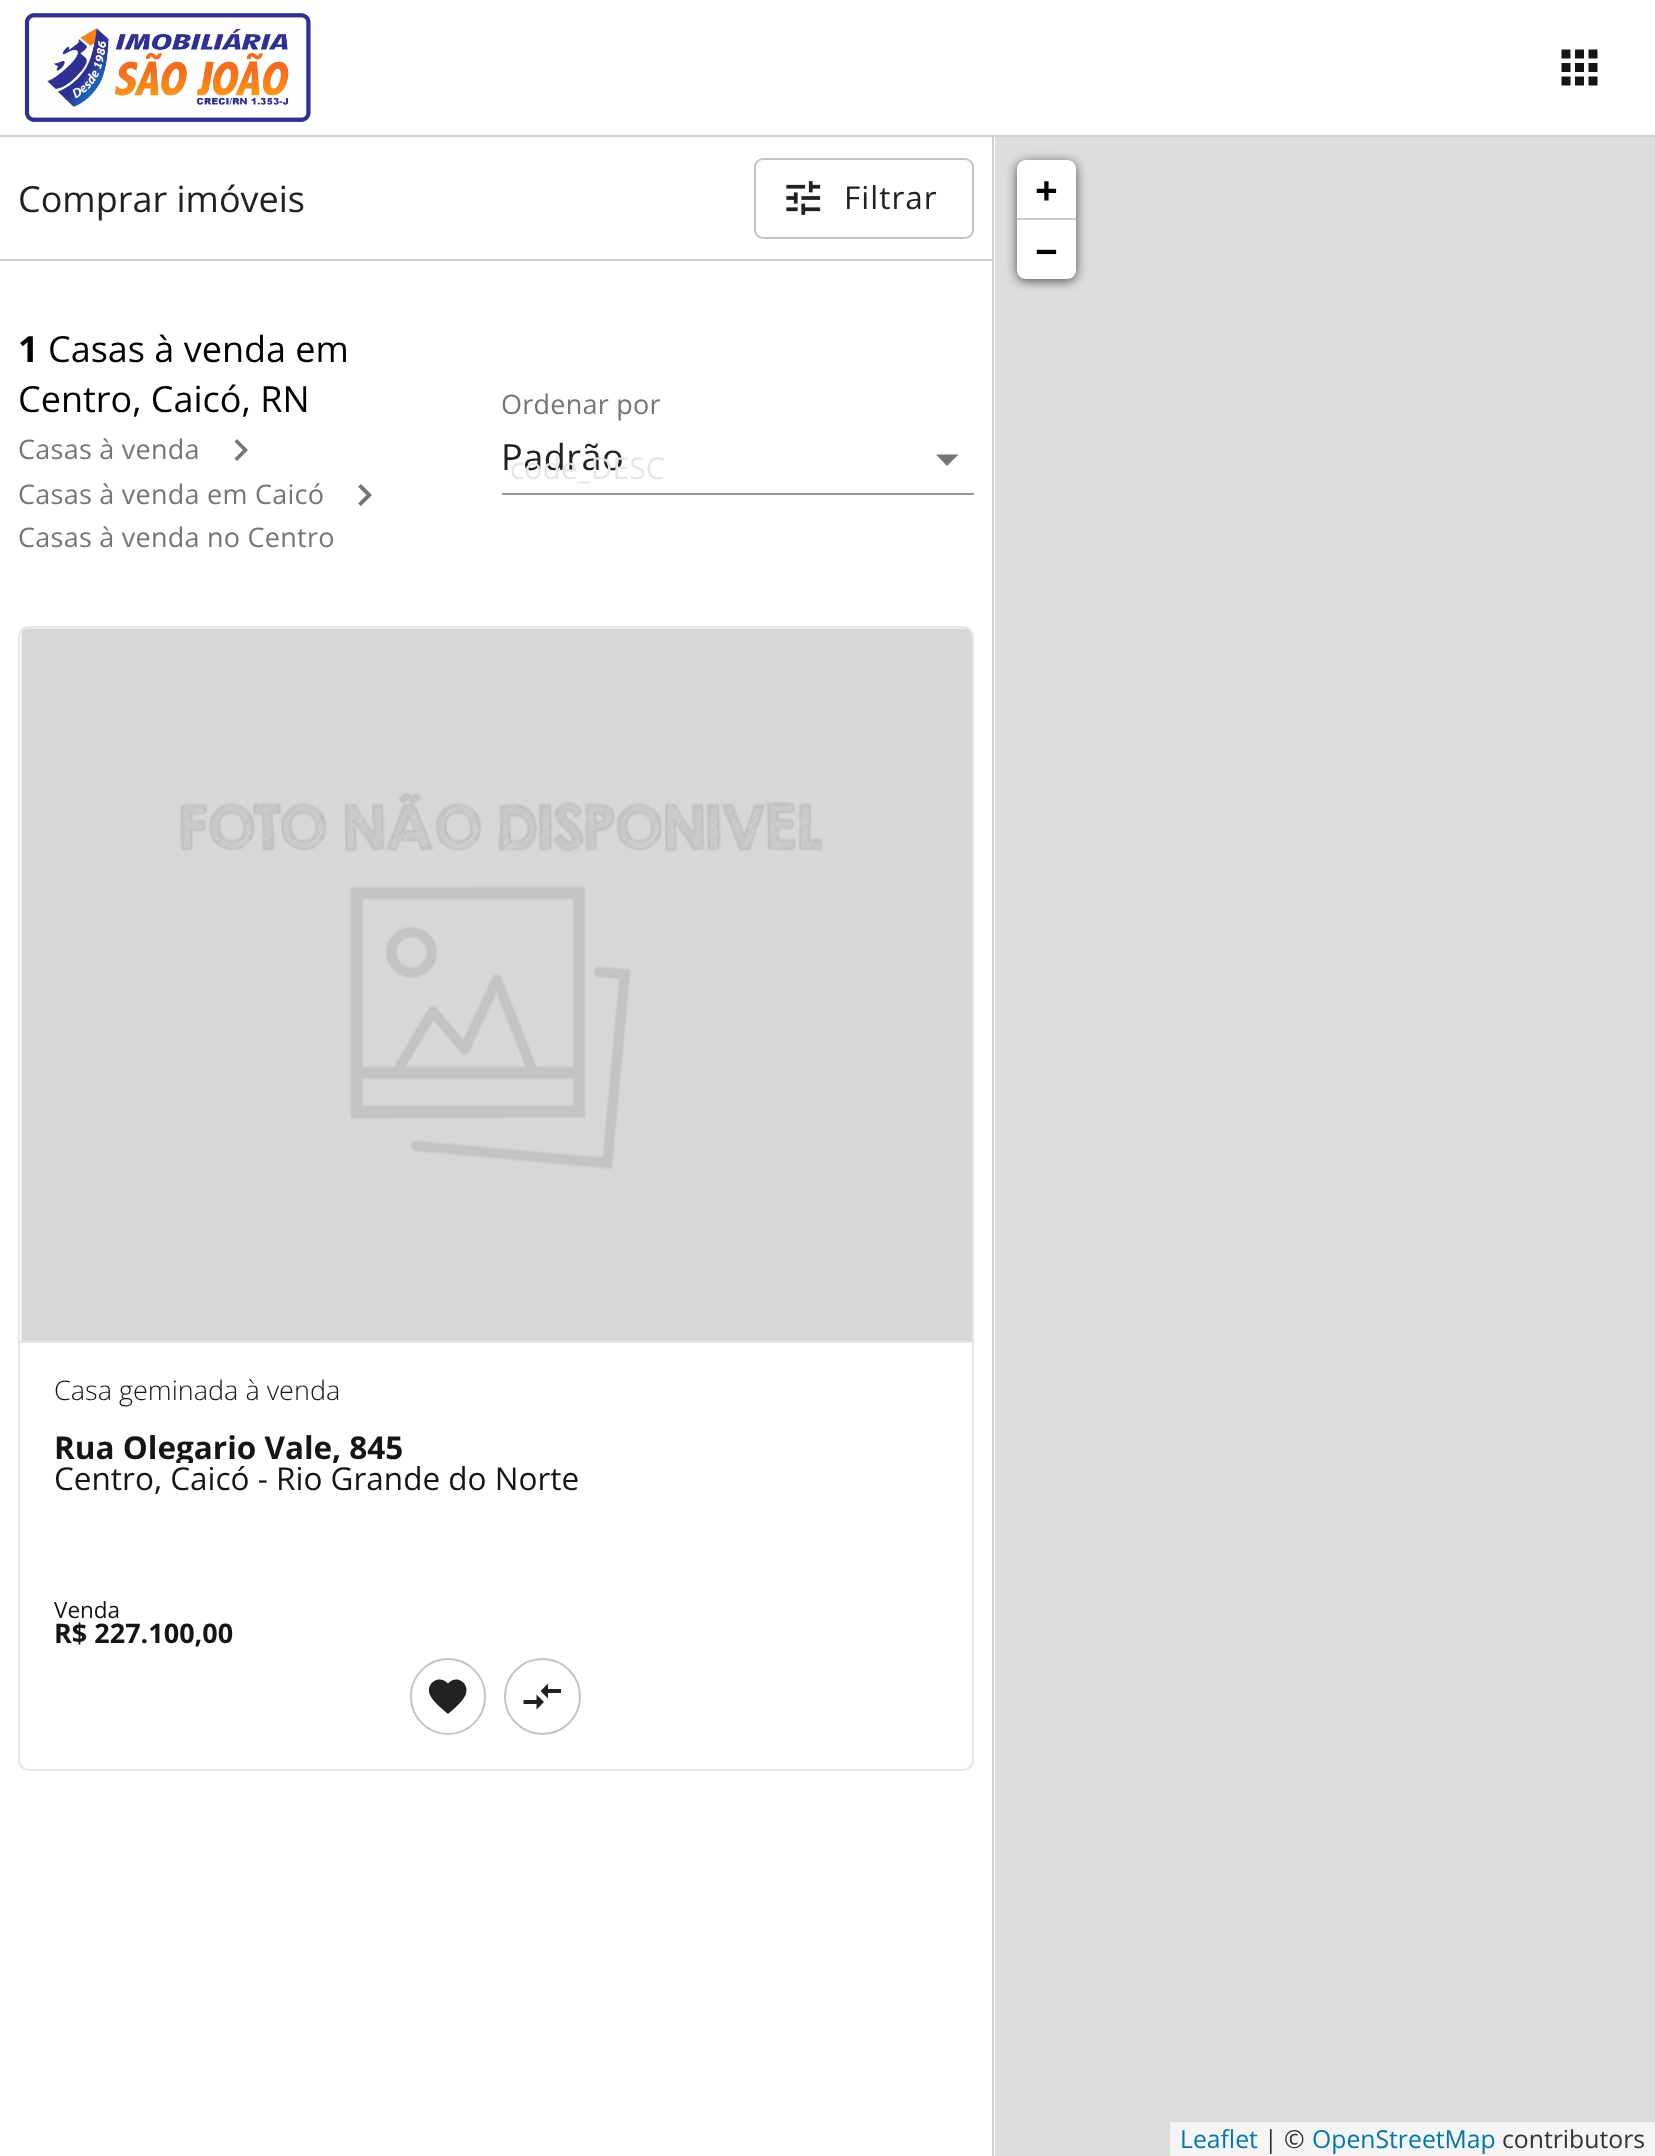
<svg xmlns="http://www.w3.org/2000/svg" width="1655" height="2156">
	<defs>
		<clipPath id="clip1"><rect x="54" y="1431" width="884" height="32" /></clipPath>
	</defs>
	<rect width="100%" height="100%" fill="#FFFFFF" />
	<image x="24" y="13" width="287" height="109" href="assets/img1.png" />
	<image x="1561" y="49" width="37" height="37" href="assets/img2.png" />
	<rect x="0" y="135" width="1655" height="2" fill="#CECECE" />
	<rect x="992" y="137" width="2" height="2019" fill="#CECECE" />
	<rect x="0" y="259" width="992" height="2" fill="#CECECE" />
	<text x="18" y="212" font-family="Open Sans" font-size="36" fill="#212121">Comprar imóveis</text>
	<rect x="755" y="159" width="218" height="79" rx="8" fill="none" stroke="#C4C4C4" stroke-width="2" />
	<image x="786" y="181" width="35" height="34" href="assets/img3.png" />
	<text x="844" y="209" font-family="Open Sans" font-size="31.5" letter-spacing="1" fill="#212121">Filtrar</text>
	<text x="18" y="362" font-family="Open Sans" font-size="36" font-weight="700" fill="#000000">1</text>
	<g font-family="Open Sans" font-size="36" fill="#000000">
		<text x="48" y="362">Casas à venda em</text>
		<text x="18" y="412">Centro, Caicó, RN</text>
	</g>
	<text x="18" y="459" font-family="Open Sans" font-size="27" letter-spacing="0.25" fill="#757575">Casas à venda</text>
	<path d="M237 439L234.5 441.5L243 450L234.5 458.5L237 461L248 450Z" fill="#757575" />
	<text x="18" y="504" font-family="Open Sans" font-size="27" letter-spacing="0.25" fill="#757575">Casas à venda em Caicó</text>
	<path d="M361 484L358 486.5L366.5 495L358 503.5L361 506L372 495Z" fill="#757575" />
	<g font-family="Open Sans" font-size="27" letter-spacing="0.25" fill="#757575">
		<text x="18" y="547">Casas à venda no Centro</text>
		<text x="501" y="414">Ordenar por</text>
	</g>
	<text x="501" y="470" font-family="Open Sans" font-size="36" letter-spacing="0.5" fill="#212121">Padrão</text>
	<path d="M936 454.5L947 466L958.5 454.5Z" fill="#757575" />
	<text x="510" y="479" font-family="Open Sans" font-size="30" fill="#E6E6E6">code_DESC</text>
	<rect x="502" y="493" width="472" height="2" fill="#949494" />
	<rect x="19" y="627" width="954" height="1143" rx="10" fill="none" stroke="#E6E6E6" stroke-width="2" />
	<rect x="20" y="1341" width="952" height="2" fill="#E6E6E6" />
	<image x="21" y="628" width="951" height="713" href="assets/img4.png" />
	<text x="54" y="1400" font-family="Open Sans" font-size="27" font-weight="300" fill="#151515">Casa geminada à venda</text>
	<g clip-path="url(#clip1)">
		<text x="54" y="1459" font-family="Open Sans" font-size="31.5" font-weight="700" fill="#151515">Rua Olegario Vale</text>
	</g>
	<text x="332" y="1459" font-family="Open Sans" font-size="31.5" font-weight="700" fill="#151515">, 845</text>
	<text x="54" y="1490" font-family="Open Sans" font-size="31.5" fill="#151515">Centro, Caicó - Rio Grande do Norte</text>
	<text x="54" y="1618" font-family="Open Sans" font-size="22.5" fill="#151515">Venda</text>
	<text x="54" y="1643" font-family="Open Sans" font-size="27" font-weight="700" fill="#151515">R$ 227.100,00</text>
	<rect x="411" y="1659" width="74" height="75" rx="37" fill="none" stroke="#C4C4C4" stroke-width="2" />
	<path d="M448 1714C442 1708.5 433.5 1702.5 430 1695C425 1683 439.5 1674 448 1683.5C456 1674 470.5 1683 465.5 1695C462 1702.5 453.5 1709 448 1714Z" fill="#212121" />
	<circle cx="542.5" cy="1696.5" r="37.5" fill="none" stroke="#C4C4C4" stroke-width="2" />
	<path d="M536.5 1700H523.5V1704H536.5V1709.5L544 1702L536.5 1694.5ZM548 1698.5V1693H561V1689H548V1683.5L540.5 1691Z" fill="#212121" />
	<rect x="995" y="137" width="660" height="2019" fill="#DDDDDD" />
	<rect x="1017" y="162" width="59" height="119" rx="9" fill="#000000" fill-opacity="0.65" filter="blur(5.5px)" />
	<path d="M1026 160H1067C1072 160 1076 164 1076 169V221H1017V169C1017 164 1021 160 1026 160Z" fill="#FFFFFF" />
	<rect x="1017" y="218" width="59" height="2" fill="#CCCCCC" />
	<text x="1035" y="205" font-family="Open Sans" font-size="40" font-weight="700" fill="#000000">+</text>
	<path d="M1017 221H1076V270C1076 275 1072 279 1067 279H1026C1021 279 1017 275 1017 270Z" fill="#FFFFFF" />
	<text x="1035" y="266" font-family="Open Sans" font-size="40" font-weight="700" fill="#000000">−</text>
	<rect x="1170" y="2122" width="485" height="34" fill="#F5F5F5" />
	<text x="1180" y="2148" font-family="Open Sans" font-size="24.75" fill="#0078A8">Leaflet</text>
	<text x="1264" y="2148" font-family="Open Sans" font-size="24.75" fill="#333333">| ©</text>
	<text x="1312" y="2148" font-family="Open Sans" font-size="24.75" fill="#0078A8">OpenStreetMap</text>
	<text x="1502" y="2148" font-family="Open Sans" font-size="24.75" fill="#333333">contributors</text>
</svg>
